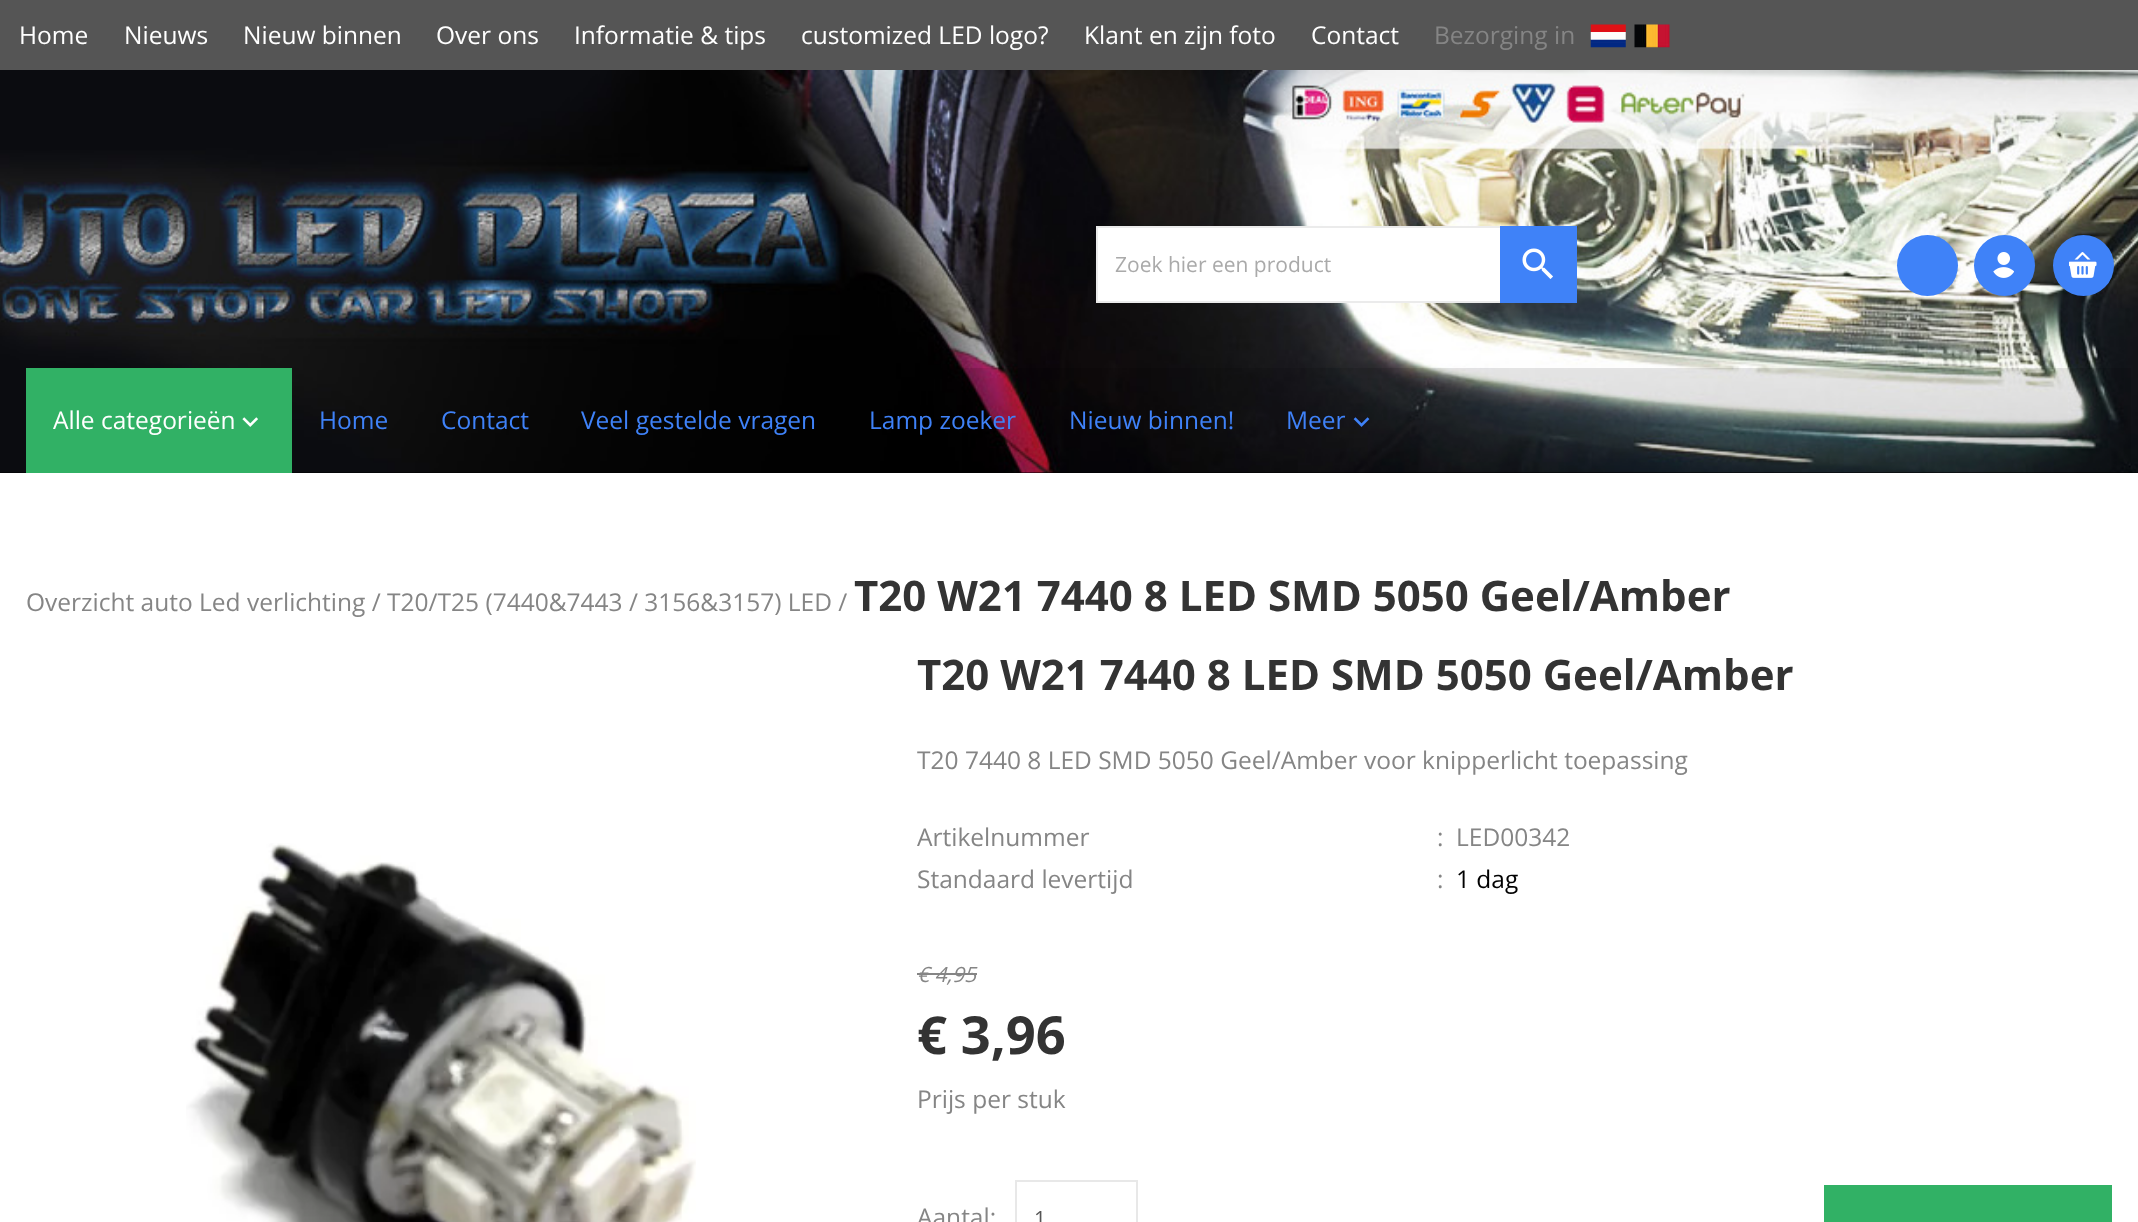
<svg xmlns="http://www.w3.org/2000/svg" width="2138" height="1222">
	<rect width="100%" height="100%" fill="#FFFFFF" />
	<rect x="0" y="0" width="2138" height="70" fill="#555555" />
	<g font-family="Open Sans" font-size="24.5" fill="#FFFFFF">
		<text x="19" y="44">Home</text>
		<text x="124" y="44">Nieuws</text>
		<text x="243" y="44">Nieuw binnen</text>
		<text x="436" y="44">Over ons</text>
		<text x="574" y="44">Informatie &amp; tips</text>
		<text x="801" y="44">customized LED logo?</text>
		<text x="1084" y="44">Klant en zijn foto</text>
		<text x="1311" y="44">Contact</text>
	</g>
	<text x="1434" y="44" font-family="Open Sans" font-size="24.5" fill="#858585">Bezorging in</text>
	<image x="1590" y="24" width="36" height="24" href="assets/img1.png" />
	<image x="1634" y="24" width="36" height="24" href="assets/img2.png" />
	<rect x="0" y="472" width="2138" height="1" fill="#000000" />
	<image x="0" y="70" width="2138" height="403" href="assets/img3.png" />
	<rect x="1098" y="228" width="402" height="73" fill="#FFFFFF" />
	<rect x="1097" y="227" width="479" height="75" fill="none" stroke="#EBEBEB" stroke-width="2" />
	<text x="1115" y="272" font-family="Open Sans" font-size="21" fill="#AAAAAA">Zoek hier een product</text>
	<rect x="1500" y="226" width="77" height="77" fill="#3F82F8" />
	<image x="1522" y="248" width="31" height="31" href="assets/img4.png" />
	<circle cx="1927.5" cy="265.5" r="30.5" fill="#3F82F8" />
	<circle cx="2004.5" cy="265.5" r="30.5" fill="#3F82F8" />
	<image x="1993" y="252" width="21" height="26" href="assets/img5.png" />
	<circle cx="2083.5" cy="265.5" r="30.5" fill="#3F82F8" />
	<image x="2069" y="252" width="28" height="26" href="assets/img6.png" />
	<rect x="962" y="368" width="1169" height="105" fill="#000000" fill-opacity="0.1" />
	<rect x="26" y="368" width="266" height="105" fill="#31B165" />
	<text x="53" y="429" font-family="Open Sans" font-size="24.5" fill="#FFFFFF">Alle categorieën</text>
	<image x="242" y="417" width="16" height="10" href="assets/img7.png" />
	<g font-family="Open Sans" font-size="24.5" fill="#3F82F8">
		<text x="319" y="429">Home</text>
		<text x="441" y="429">Contact</text>
		<text x="581" y="429">Veel gestelde vragen</text>
		<text x="869" y="429">Lamp zoeker</text>
		<text x="1069" y="429">Nieuw binnen!</text>
		<text x="1286" y="429">Meer</text>
	</g>
	<image x="1353" y="417" width="17" height="10" href="assets/img8.png" />
	<text x="26" y="611" font-family="Open Sans" font-size="24.5" fill="#858585">Overzicht auto Led verlichting / T20/T25 (7440&amp;7443 / 3156&amp;3157) LED /</text>
	<text x="854" y="611" font-family="Open Sans" font-size="42" font-weight="700" fill="#333333">T20 W21 7440 8 LED SMD 5050 Geel/Amber</text>
	<image x="186" y="843" width="510" height="379" href="assets/img9.png" />
	<text x="917" y="690" font-family="Open Sans" font-size="42" font-weight="700" fill="#333333">T20 W21 7440 8 LED SMD 5050 Geel/Amber</text>
	<g font-family="Open Sans" font-size="24.5" fill="#858585">
		<text x="917" y="769">T20 7440 8 LED SMD 5050 Geel/Amber voor knipperlicht toepassing</text>
		<text x="917" y="846">Artikelnummer</text>
		<text x="1437" y="846">:</text>
		<text x="1456" y="846">LED00342</text>
		<text x="917" y="888">Standaard levertijd</text>
		<text x="1437" y="888">:</text>
	</g>
	<text x="1456" y="888" font-family="Open Sans" font-size="24.5" fill="#000000">1 dag</text>
	<text x="917" y="982" font-family="Open Sans" font-size="21" font-style="italic" fill="#858585">€ 4,95</text>
	<rect x="917" y="973" width="60" height="2" fill="#858585" />
	<text x="917" y="1054" font-family="Open Sans" font-size="52.5" font-weight="700" fill="#333333">€ 3,96</text>
	<g font-family="Open Sans" font-size="24.5" fill="#858585">
		<text x="917" y="1108">Prijs per stuk</text>
		<text x="917" y="1226">Aantal:</text>
	</g>
	<rect x="1016" y="1181" width="121" height="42" fill="none" stroke="#E8E8E8" stroke-width="2" />
	<text x="1034" y="1226" font-family="Open Sans" font-size="21" fill="#555555">1</text>
	<rect x="1824" y="1185" width="288" height="37" fill="#31B165" />
</svg>
